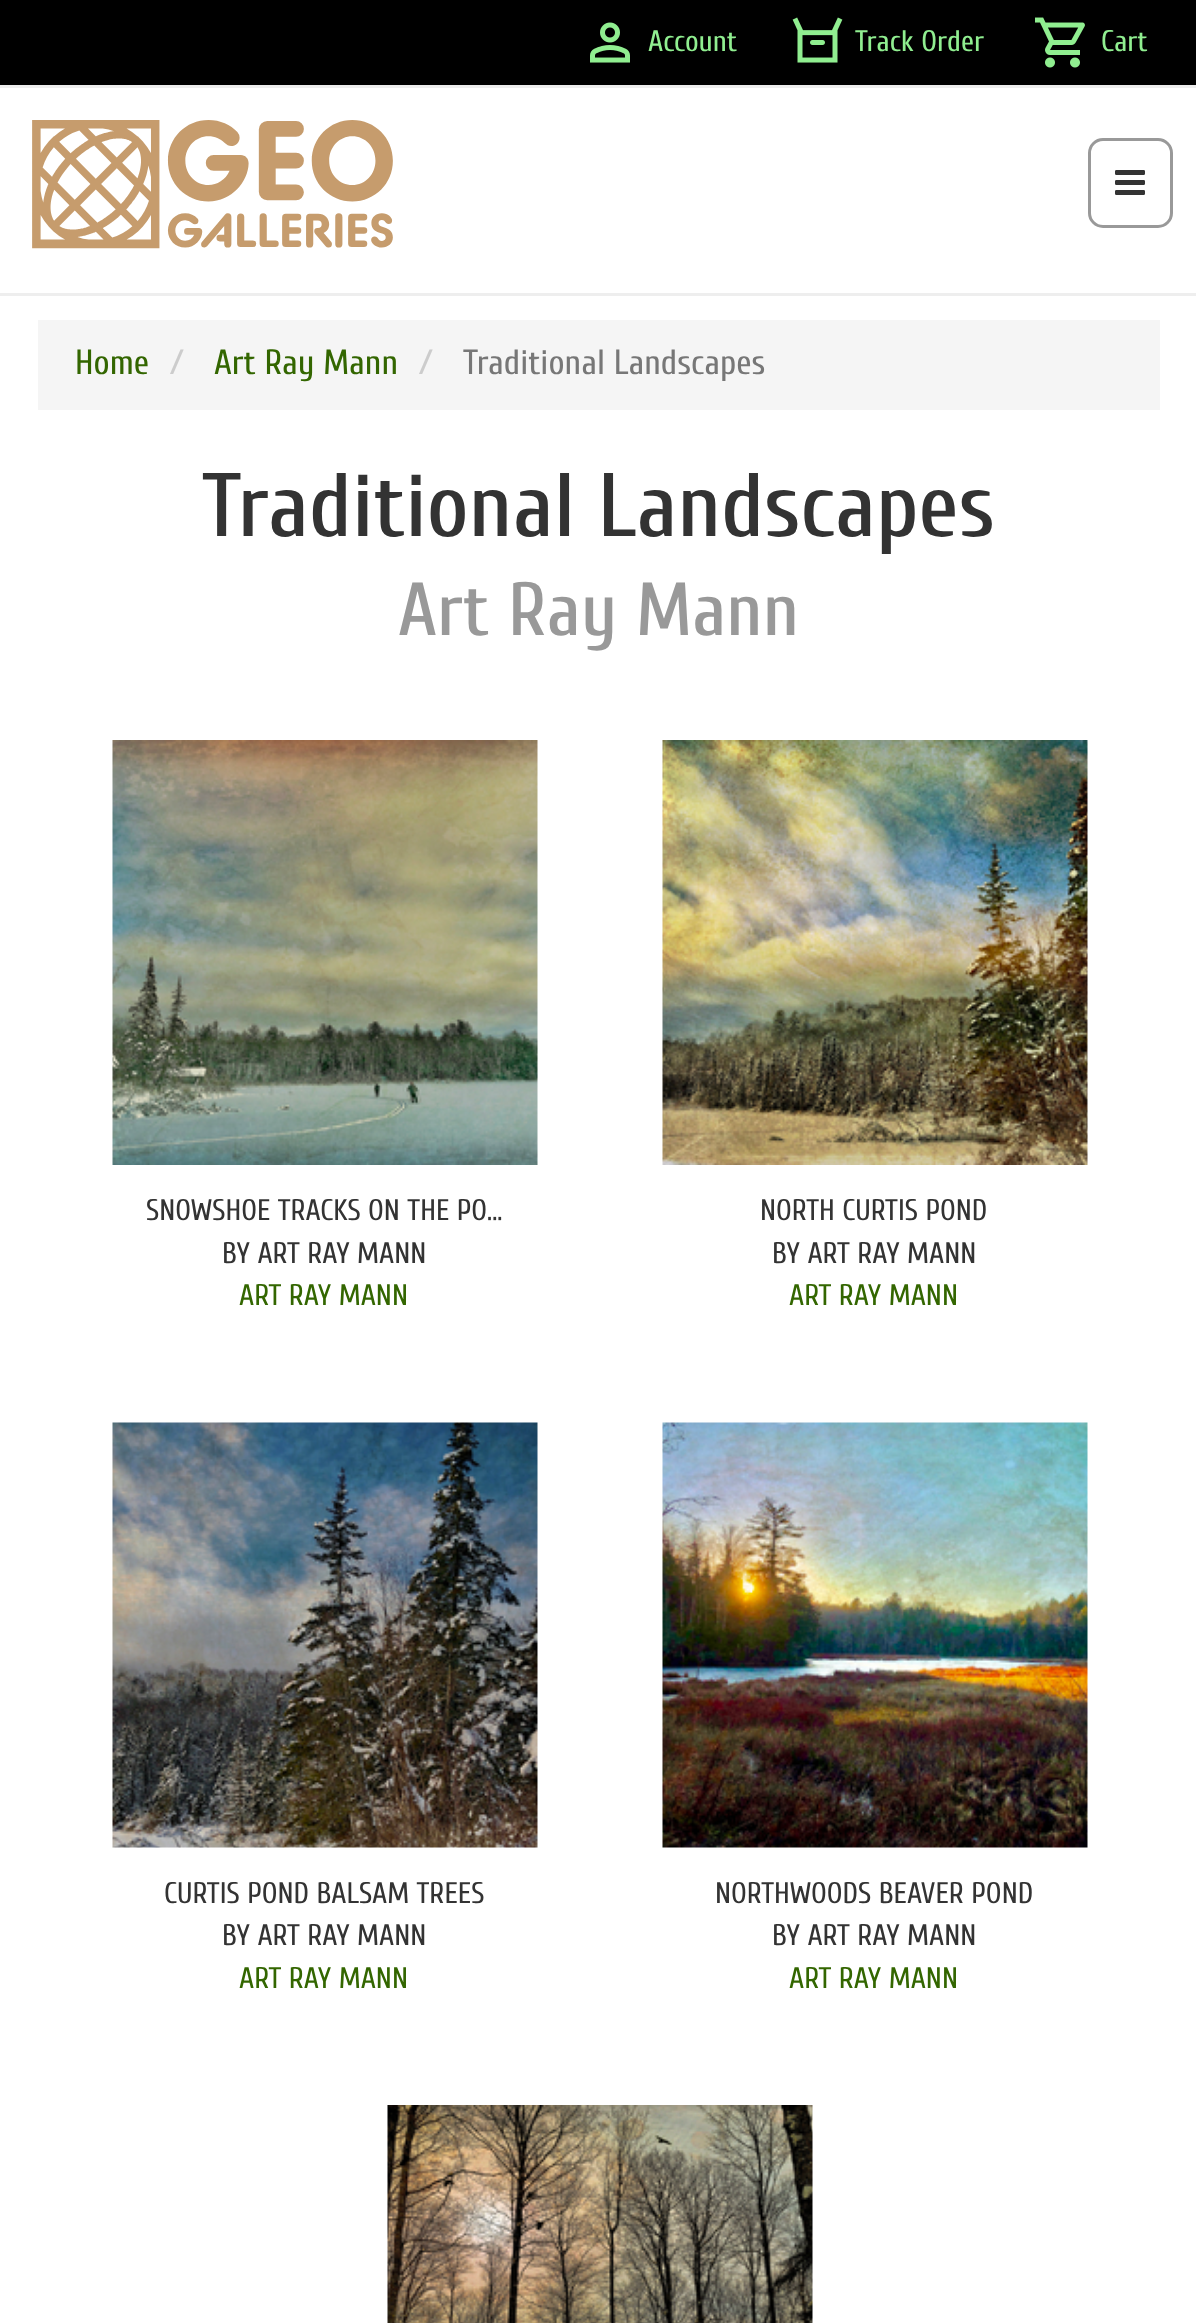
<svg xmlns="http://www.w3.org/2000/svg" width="1196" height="2323">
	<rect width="100%" height="100%" fill="#FFFFFF" />
	<rect x="0" y="0" width="1196" height="85" fill="#000000" />
	<rect x="0" y="85" width="1196" height="3" fill="#EEEEEE" />
	<image x="590" y="22" width="40" height="41" href="assets/img1.png" />
	<text x="648" y="51" font-family="Cuprum" font-size="29.75" fill="#90EE90">Account</text>
	<image x="792" y="17" width="51" height="46" href="assets/img2.png" />
	<text x="855" y="51" font-family="Cuprum" font-size="29.75" fill="#90EE90">Track Order</text>
	<image x="1035" y="17" width="50" height="51" href="assets/img3.png" />
	<text x="1101" y="51" font-family="Cuprum" font-size="29.75" fill="#90EE90">Cart</text>
	<image x="32" y="120" width="361" height="129" href="assets/img4.png" />
	<rect x="1089.5" y="139.5" width="82" height="87" rx="13.5" fill="none" stroke="#999999" stroke-width="3" />
	<image x="1115" y="170" width="30" height="25" href="assets/img5.png" />
	<rect x="0" y="293" width="1196" height="3" fill="#EEEEEE" />
	<rect x="38" y="320" width="1122" height="90" fill="#F5F5F5" />
	<text x="75" y="374" font-family="Cuprum" font-size="35" fill="#336600">Home</text>
	<text x="170" y="374" font-family="Cuprum" font-size="35" fill="#CCCCCC">/</text>
	<text x="214" y="374" font-family="Cuprum" font-size="35" fill="#336600">Art Ray Mann</text>
	<text x="419" y="374" font-family="Cuprum" font-size="35" fill="#CCCCCC">/</text>
	<text x="463" y="374" font-family="Cuprum" font-size="35" fill="#777777">Traditional Landscapes</text>
	<text x="202" y="536" font-family="Cuprum" font-size="90" font-weight="500" fill="#333333">Traditional Landscapes</text>
	<text x="398" y="635" font-family="Cuprum" font-size="75" font-weight="500" fill="#999999">Art Ray Mann</text>
	<image x="112" y="740" width="426" height="425" href="assets/img6.png" />
	<g font-family="Cuprum" font-size="29.75" fill="#333333">
		<text x="146" y="1220">SNOWSHOE TRACKS ON THE PO...</text>
		<text x="222" y="1263">BY ART RAY MANN</text>
	</g>
	<text x="239" y="1305" font-family="Cuprum" font-size="29.75" fill="#336600">ART RAY MANN</text>
	<image x="662" y="740" width="426" height="425" href="assets/img7.png" />
	<g font-family="Cuprum" font-size="29.75" fill="#333333">
		<text x="760" y="1220">NORTH CURTIS POND</text>
		<text x="772" y="1263">BY ART RAY MANN</text>
	</g>
	<text x="789" y="1305" font-family="Cuprum" font-size="29.75" fill="#336600">ART RAY MANN</text>
	<image x="112" y="1422" width="426" height="426" href="assets/img8.png" />
	<g font-family="Cuprum" font-size="29.75" fill="#333333">
		<text x="164" y="1903">CURTIS POND BALSAM TREES</text>
		<text x="222" y="1945">BY ART RAY MANN</text>
	</g>
	<text x="239" y="1988" font-family="Cuprum" font-size="29.75" fill="#336600">ART RAY MANN</text>
	<image x="662" y="1422" width="426" height="426" href="assets/img9.png" />
	<g font-family="Cuprum" font-size="29.75" fill="#333333">
		<text x="715" y="1903">NORTHWOODS BEAVER POND</text>
		<text x="772" y="1945">BY ART RAY MANN</text>
	</g>
	<text x="789" y="1988" font-family="Cuprum" font-size="29.75" fill="#336600">ART RAY MANN</text>
	<image x="387" y="2105" width="426" height="218" href="assets/img10.png" />
</svg>
